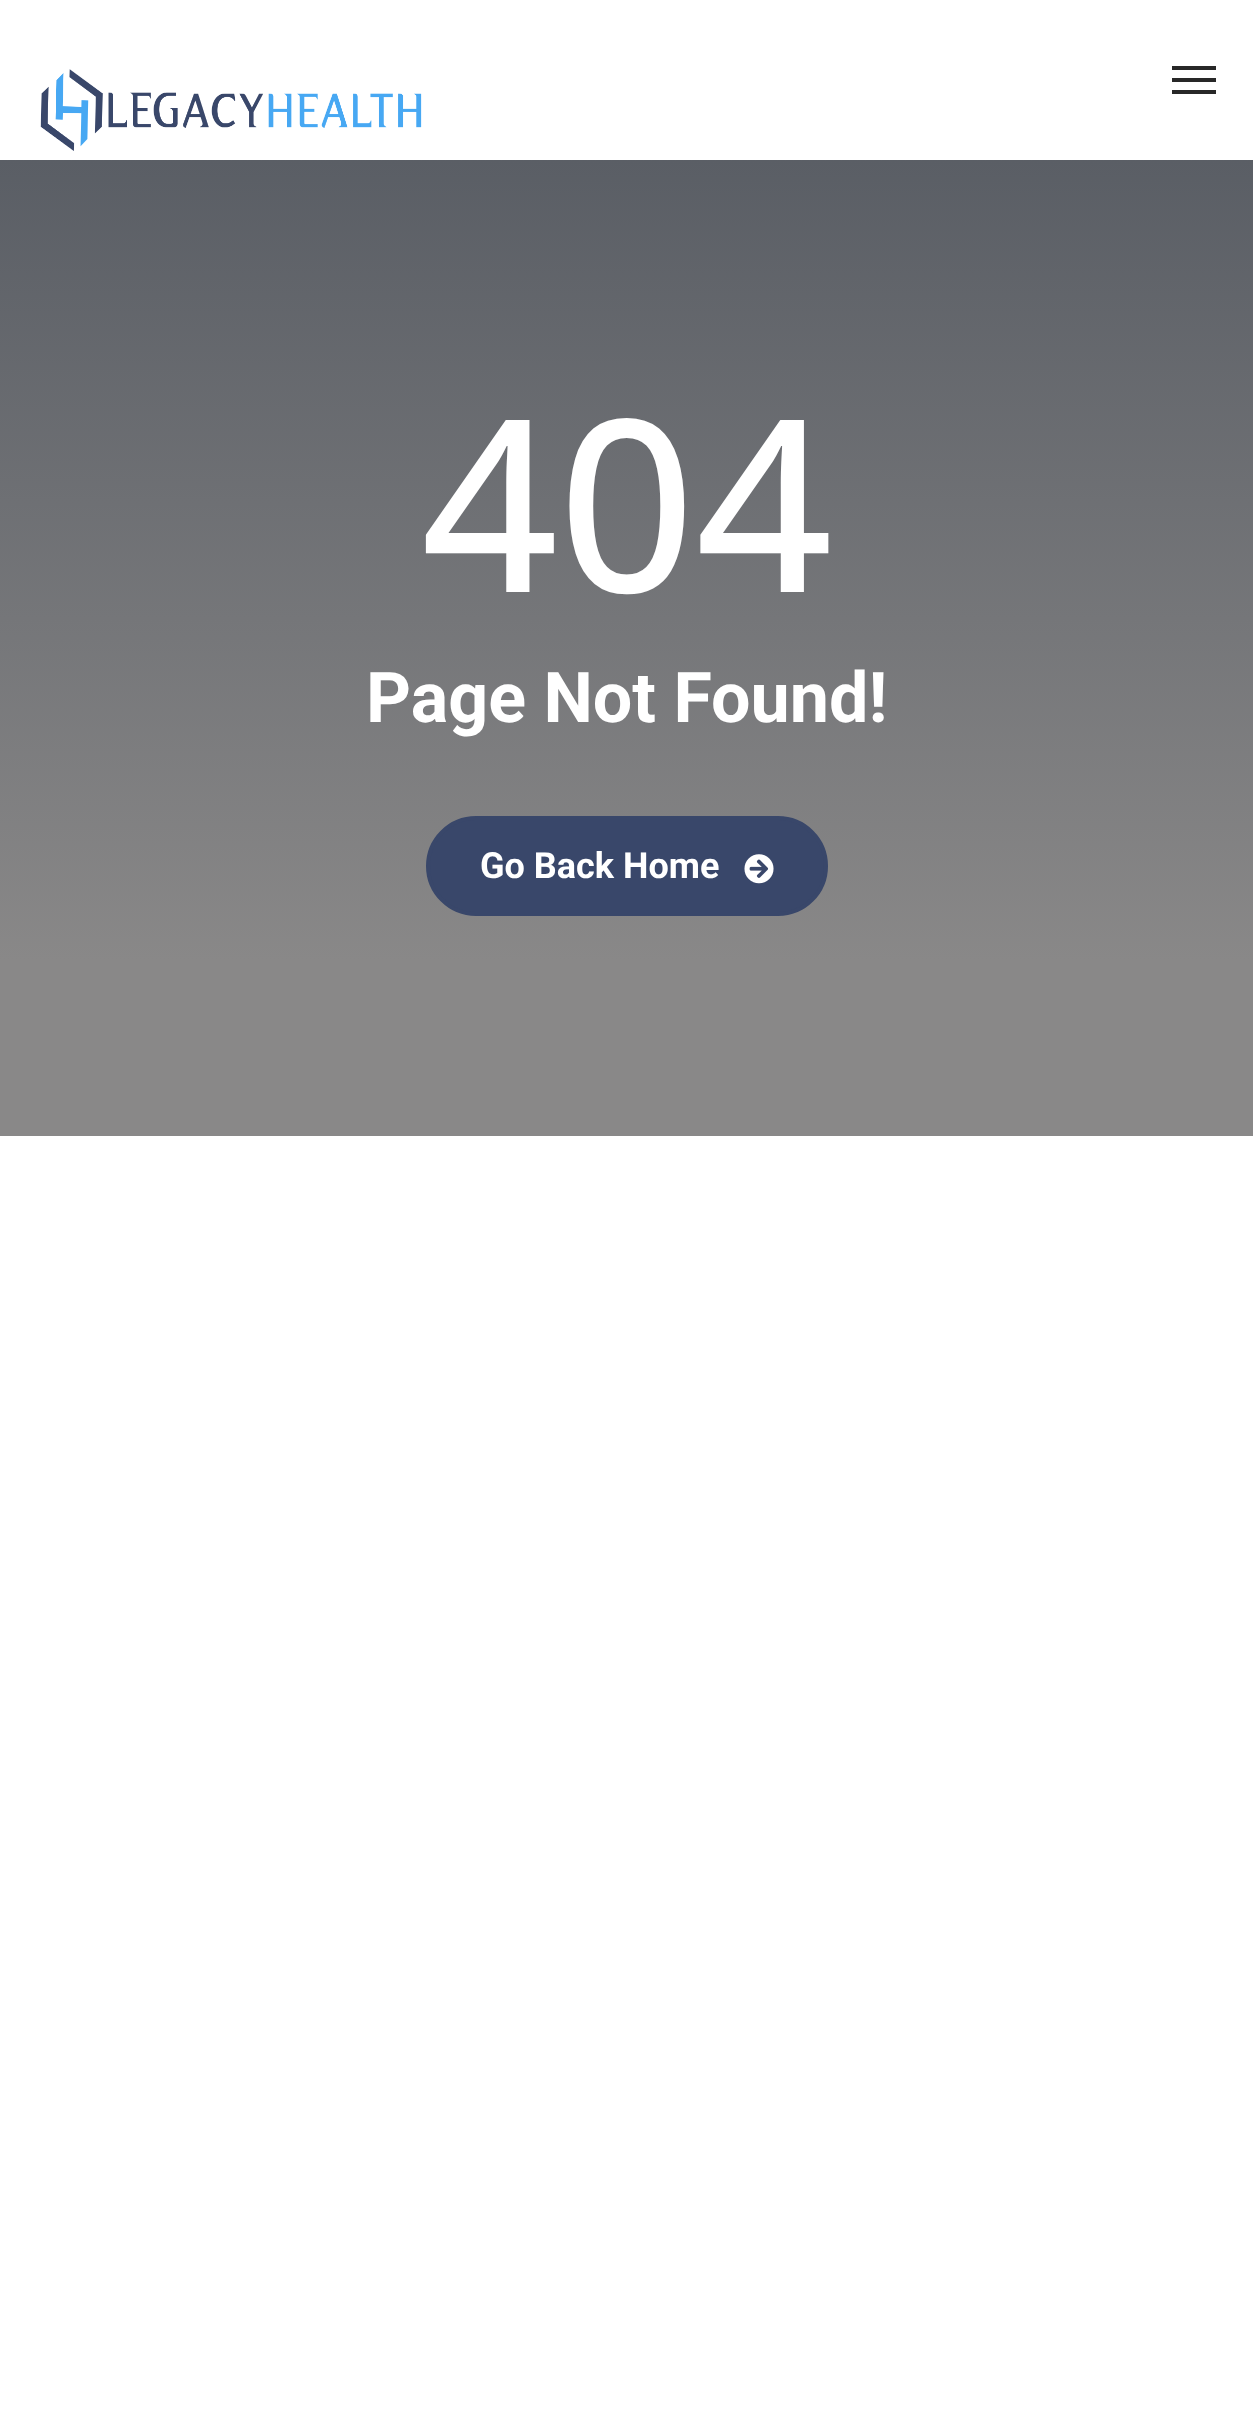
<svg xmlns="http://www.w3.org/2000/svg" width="1253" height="2410">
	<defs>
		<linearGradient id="g1" gradientUnits="userSpaceOnUse" x1="627" y1="160" x2="627" y2="1136"><stop offset="0" stop-color="#5A5E65" /><stop offset="0.82" stop-color="#898888" /></linearGradient>
	</defs>
	<rect width="100%" height="100%" fill="#FFFFFF" />
	<image x="40" y="69" width="382" height="82" href="assets/img1.png" />
	<rect x="1172" y="66" width="44" height="4" fill="#282828" />
	<rect x="1172" y="78" width="44" height="4" fill="#282828" />
	<rect x="1172" y="90" width="44" height="4" fill="#282828" />
	<rect x="0" y="160" width="1253" height="976" fill="url(#g1)" />
	<text x="421" y="592" font-family="Open Sans" font-size="240" font-weight="500" fill="#FFFFFF">404</text>
	<text x="366" y="722" font-family="Roboto" font-size="70" font-weight="700" fill="#FFFFFF">Page Not Found!</text>
	<rect x="428" y="818" width="398" height="96" rx="48" fill="#39476A" stroke="#39476A" stroke-width="4" />
	<text x="480" y="878" font-family="Roboto" font-size="36" font-weight="700" fill="#FFFFFF">Go Back Home</text>
	<image x="744" y="854" width="30" height="30" href="assets/img2.png" />
</svg>
